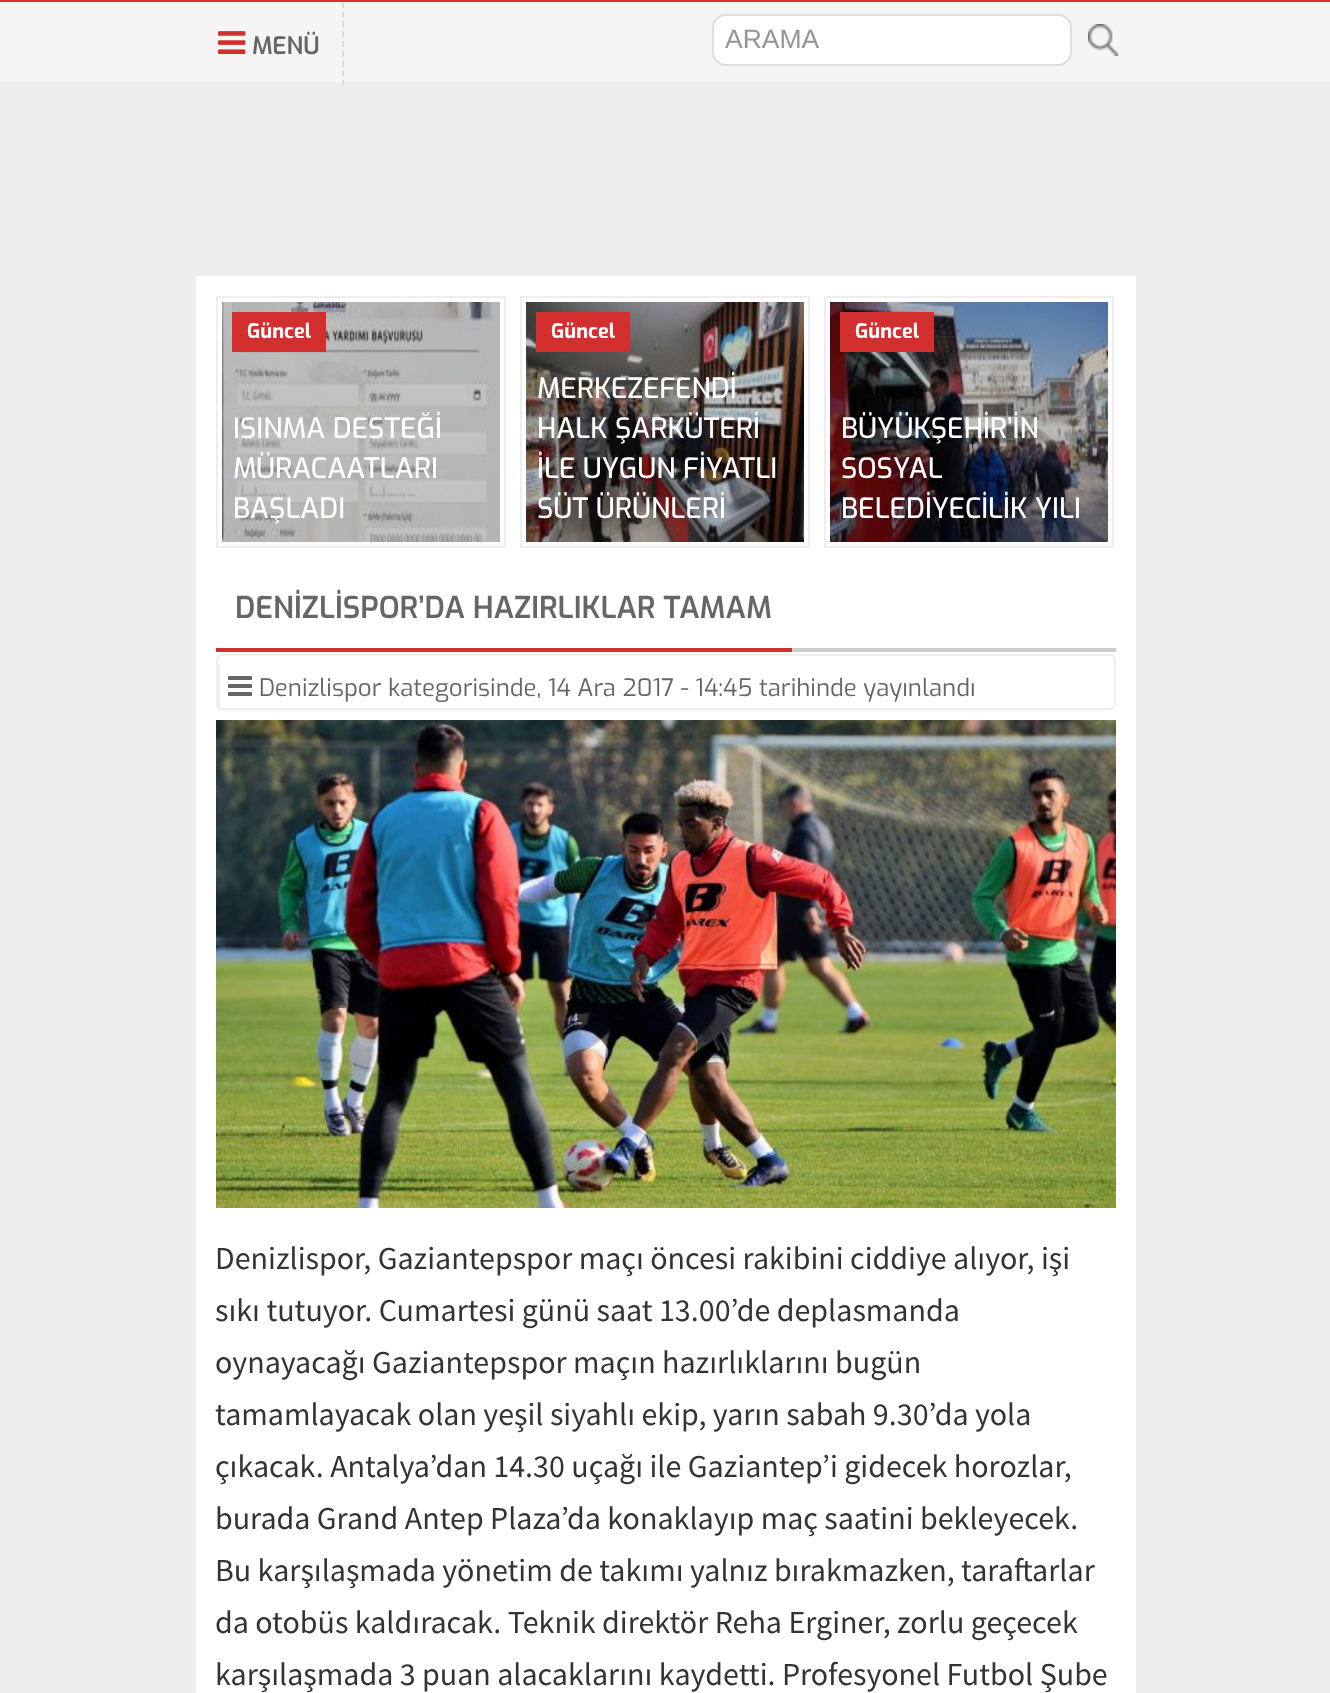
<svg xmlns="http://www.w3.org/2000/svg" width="1330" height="1693">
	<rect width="100%" height="100%" fill="#EDEDED" />
	<rect x="0" y="2" width="1330" height="80" fill="#F5F5F5" />
	<rect x="0" y="0" width="1330" height="2" fill="#D32F2F" />
	<path d="M343 2V86" fill="none" stroke="#DDDDDD" stroke-width="2" stroke-dasharray="6 3.76" />
	<image x="218" y="31" width="28" height="23" href="assets/img1.png" />
	<text x="252" y="54" font-family="Exo" font-size="24" font-weight="600" fill="#666666">MENÜ</text>
	<rect x="713" y="15" width="358" height="50" rx="13" fill="#FFFFFF" stroke="#DDDDDD" stroke-width="2" />
	<text x="725" y="48" font-family="Liberation Sans" font-size="26.5" fill="#959595">ARAMA</text>
	<image x="1088" y="24" width="31" height="32" href="assets/img2.png" />
	<rect x="196" y="276" width="940" height="1417" fill="#FFFFFF" />
	<rect x="217" y="297" width="288" height="250" fill="none" stroke="#EEEEEE" stroke-width="2" />
	<image x="222" y="302" width="278" height="240" href="assets/img3.png" />
	<rect x="232" y="312" width="94" height="40" fill="#D32F2F" />
	<text x="247" y="338" font-family="Exo" font-size="20" font-weight="700" fill="#FFFFFF">Güncel</text>
	<g font-family="Exo" font-size="28" font-weight="500" fill="#FFFFFF">
		<text x="233" y="438">ISINMA DESTEĞİ</text>
		<text x="233" y="478">MÜRACAATLARI</text>
		<text x="233" y="518">BAŞLADI</text>
	</g>
	<rect x="521" y="297" width="288" height="250" fill="none" stroke="#EEEEEE" stroke-width="2" />
	<image x="526" y="302" width="278" height="240" href="assets/img4.png" />
	<rect x="536" y="312" width="94" height="40" fill="#D32F2F" />
	<text x="551" y="338" font-family="Exo" font-size="20" font-weight="700" fill="#FFFFFF">Güncel</text>
	<g font-family="Exo" font-size="28" font-weight="500" fill="#FFFFFF">
		<text x="537" y="398">MERKEZEFENDİ</text>
		<text x="537" y="438">HALK ŞARKÜTERİ</text>
		<text x="537" y="478">İLE UYGUN FİYATLI</text>
		<text x="537" y="518">SÜT ÜRÜNLERİ</text>
	</g>
	<rect x="825" y="297" width="288" height="250" fill="none" stroke="#EEEEEE" stroke-width="2" />
	<image x="830" y="302" width="278" height="240" href="assets/img5.png" />
	<rect x="840" y="312" width="94" height="40" fill="#D32F2F" />
	<text x="855" y="338" font-family="Exo" font-size="20" font-weight="700" fill="#FFFFFF">Güncel</text>
	<g font-family="Exo" font-size="28" font-weight="500" fill="#FFFFFF">
		<text x="841" y="438">BÜYÜKŞEHİR’İN</text>
		<text x="841" y="478">SOSYAL</text>
		<text x="841" y="518">BELEDİYECİLİK YILI</text>
	</g>
	<rect x="792" y="648" width="324" height="4" fill="#CCCCCC" />
	<rect x="216" y="648" width="576" height="4" fill="#D32F2F" />
	<text x="235" y="618" font-family="Exo" font-size="30" font-weight="600" fill="#666666">DENİZLİSPOR’DA HAZIRLIKLAR TAMAM</text>
	<rect x="217" y="655" width="898" height="54" rx="5" fill="none" stroke="#EEEEEE" stroke-width="2" />
	<rect x="218" y="664" width="2" height="46" fill="#EEEEEE" />
	<image x="228" y="676" width="24" height="20" href="assets/img6.png" />
	<text x="259" y="696" font-family="Exo" font-size="24" fill="#666666">Denizlispor kategorisinde, 14 Ara 2017 - 14:45 tarihinde yayınlandı</text>
	<image x="216" y="720" width="900" height="488" href="assets/img7.png" />
	<g font-family="Source Sans Pro" font-size="32" fill="#333333">
		<text x="215" y="1269">Denizlispor, Gaziantepspor maçı öncesi rakibini ciddiye alıyor, işi</text>
		<text x="215" y="1321">sıkı tutuyor. Cumartesi günü saat 13.00’de deplasmanda</text>
		<text x="215" y="1373">oynayacağı Gaziantepspor maçın hazırlıklarını bugün</text>
		<text x="215" y="1425">tamamlayacak olan yeşil siyahlı ekip, yarın sabah 9.30’da yola</text>
		<text x="215" y="1477">çıkacak. Antalya’dan 14.30 uçağı ile Gaziantep’i gidecek horozlar,</text>
		<text x="215" y="1529">burada Grand Antep Plaza’da konaklayıp maç saatini bekleyecek.</text>
		<text x="215" y="1581">Bu karşılaşmada yönetim de takımı yalnız bırakmazken, taraftarlar</text>
		<text x="215" y="1633">da otobüs kaldıracak. Teknik direktör Reha Erginer, zorlu geçecek</text>
		<text x="215" y="1685">karşılaşmada 3 puan alacaklarını kaydetti. Profesyonel Futbol Şube</text>
	</g>
</svg>
